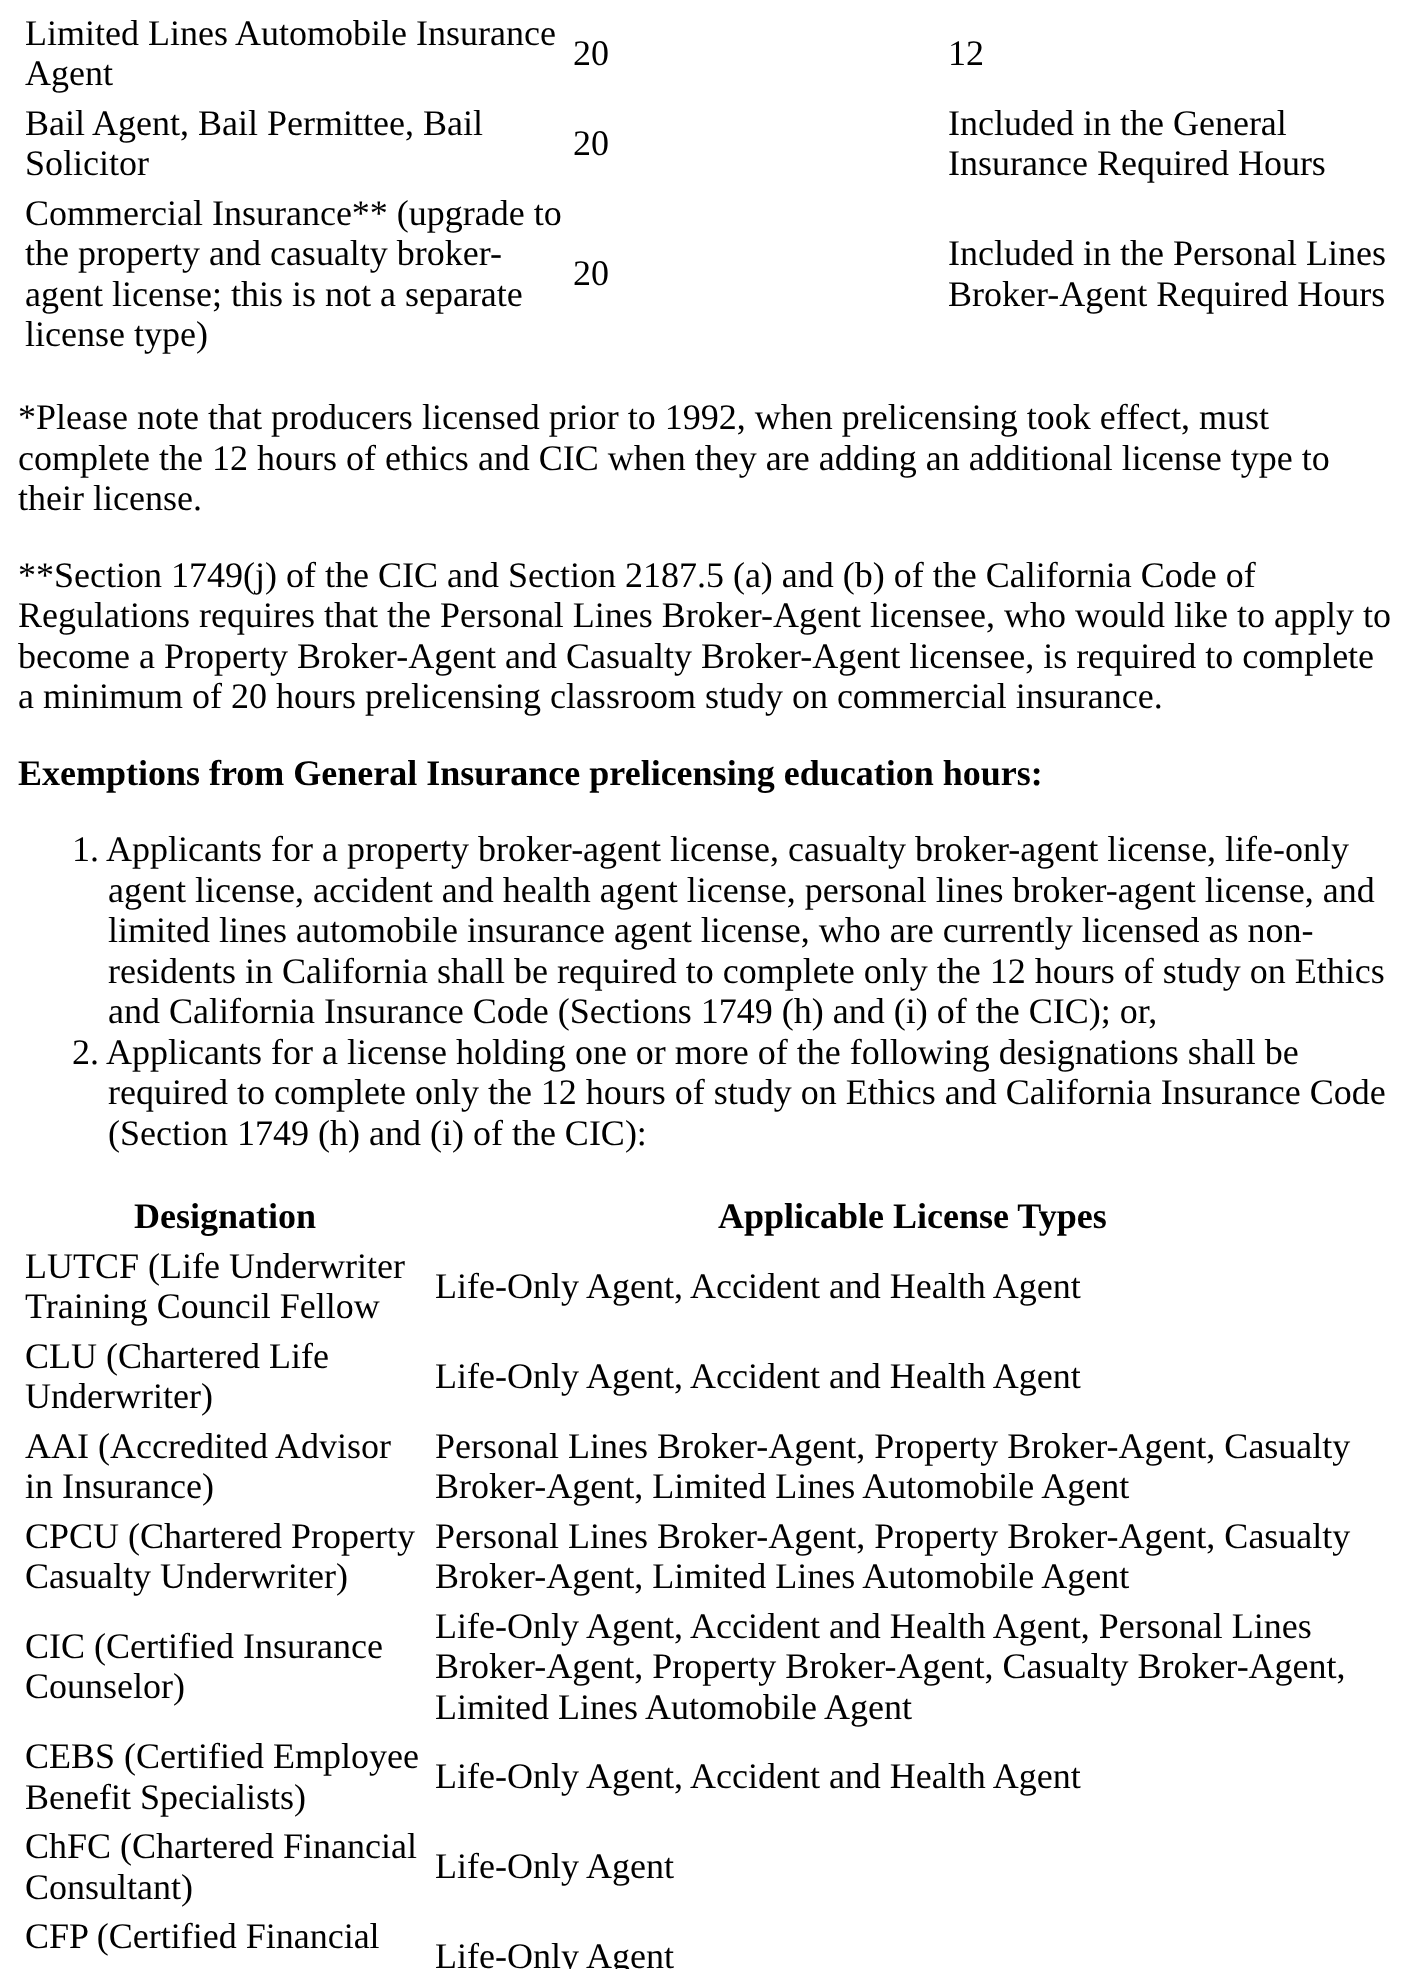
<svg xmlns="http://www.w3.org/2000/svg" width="1415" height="1969">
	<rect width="100%" height="100%" fill="#FFFFFF" />
	<g font-family="Liberation Serif" font-size="36" fill="#000000">
		<text x="25" y="45">Limited Lines Automobile Insurance</text>
		<text x="25" y="85">Agent</text>
		<text x="573" y="65">20</text>
		<text x="948" y="65">12</text>
		<text x="25" y="135">Bail Agent, Bail Permittee, Bail</text>
		<text x="25" y="175">Solicitor</text>
		<text x="573" y="155">20</text>
		<text x="948" y="135">Included in the General</text>
		<text x="948" y="175">Insurance Required Hours</text>
		<text x="25" y="225">Commercial Insurance** (upgrade to</text>
		<text x="25" y="265">the property and casualty broker-</text>
		<text x="25" y="306">agent license; this is not a separate</text>
		<text x="25" y="346">license type)</text>
		<text x="573" y="285">20</text>
		<text x="948" y="265">Included in the Personal Lines</text>
		<text x="948" y="306">Broker-Agent Required Hours</text>
		<text x="18" y="429">*Please note that producers licensed prior to 1992, when prelicensing took effect, must</text>
		<text x="18" y="470">complete the 12 hours of ethics and CIC when they are adding an additional license type to</text>
		<text x="18" y="510">their license.</text>
		<text x="18" y="587">**Section 1749(j) of the CIC and Section 2187.5 (a) and (b) of the California Code of</text>
		<text x="18" y="627">Regulations requires that the Personal Lines Broker-Agent licensee, who would like to apply to</text>
		<text x="18" y="668">become a Property Broker-Agent and Casualty Broker-Agent licensee, is required to complete</text>
		<text x="18" y="708">a minimum of 20 hours prelicensing classroom study on commercial insurance.</text>
	</g>
	<text x="18" y="785" font-family="Liberation Serif" font-size="36" font-weight="700" fill="#000000">Exemptions from General Insurance prelicensing education hours:</text>
	<g font-family="Liberation Serif" font-size="36" fill="#000000">
		<text x="72" y="861">1. Applicants for a property broker-agent license, casualty broker-agent license, life-only</text>
		<text x="108" y="902">agent license, accident and health agent license, personal lines broker-agent license, and</text>
		<text x="108" y="942">limited lines automobile insurance agent license, who are currently licensed as non-</text>
		<text x="108" y="983">residents in California shall be required to complete only the 12 hours of study on Ethics</text>
		<text x="108" y="1023">and California Insurance Code (Sections 1749 (h) and (i) of the CIC); or,</text>
		<text x="72" y="1064">2. Applicants for a license holding one or more of the following designations shall be</text>
		<text x="108" y="1104">required to complete only the 12 hours of study on Ethics and California Insurance Code</text>
		<text x="108" y="1145">(Section 1749 (h) and (i) of the CIC):</text>
	</g>
	<g font-family="Liberation Serif" font-size="36" font-weight="700" fill="#000000">
		<text x="134" y="1228">Designation</text>
		<text x="718" y="1228">Applicable License Types</text>
	</g>
	<g font-family="Liberation Serif" font-size="36" fill="#000000">
		<text x="25" y="1278">LUTCF (Life Underwriter</text>
		<text x="25" y="1318">Training Council Fellow</text>
		<text x="435" y="1298">Life-Only Agent, Accident and Health Agent</text>
		<text x="25" y="1368">CLU (Chartered Life</text>
		<text x="25" y="1408">Underwriter)</text>
		<text x="435" y="1388">Life-Only Agent, Accident and Health Agent</text>
		<text x="25" y="1458">AAI (Accredited Advisor</text>
		<text x="25" y="1498">in Insurance)</text>
		<text x="435" y="1458">Personal Lines Broker-Agent, Property Broker-Agent, Casualty</text>
		<text x="435" y="1498">Broker-Agent, Limited Lines Automobile Agent</text>
		<text x="25" y="1548">CPCU (Chartered Property</text>
		<text x="25" y="1588">Casualty Underwriter)</text>
		<text x="435" y="1548">Personal Lines Broker-Agent, Property Broker-Agent, Casualty</text>
		<text x="435" y="1588">Broker-Agent, Limited Lines Automobile Agent</text>
		<text x="25" y="1658">CIC (Certified Insurance</text>
		<text x="25" y="1698">Counselor)</text>
		<text x="435" y="1638">Life-Only Agent, Accident and Health Agent, Personal Lines</text>
		<text x="435" y="1678">Broker-Agent, Property Broker-Agent, Casualty Broker-Agent,</text>
		<text x="435" y="1719">Limited Lines Automobile Agent</text>
		<text x="25" y="1768">CEBS (Certified Employee</text>
		<text x="25" y="1809">Benefit Specialists)</text>
		<text x="435" y="1788">Life-Only Agent, Accident and Health Agent</text>
		<text x="25" y="1858">ChFC (Chartered Financial</text>
		<text x="25" y="1899">Consultant)</text>
		<text x="435" y="1878">Life-Only Agent</text>
		<text x="25" y="1948">CFP (Certified Financial</text>
		<text x="435" y="1968">Life-Only Agent</text>
	</g>
</svg>
